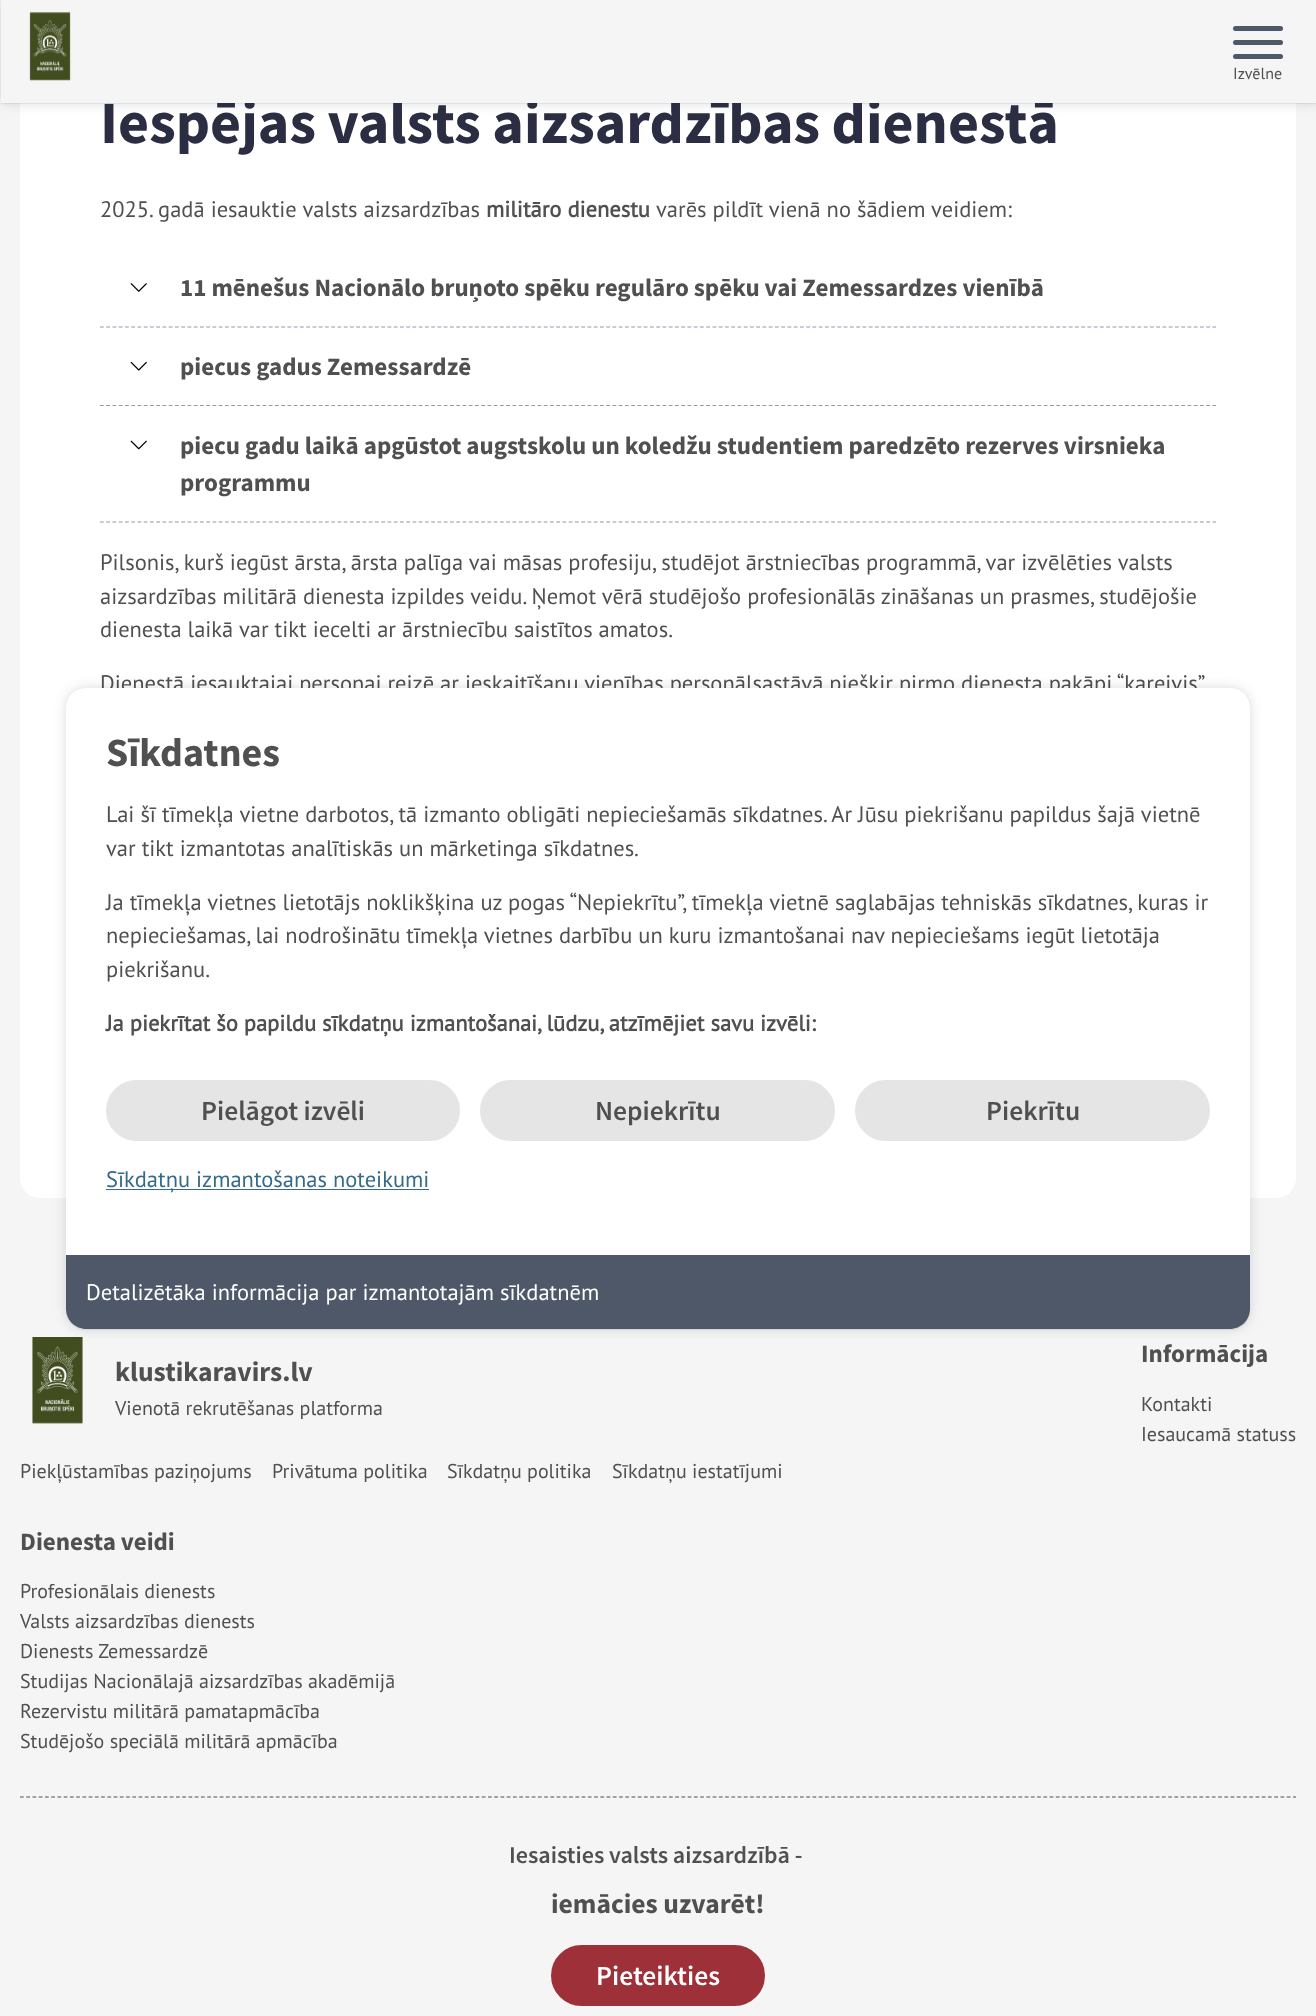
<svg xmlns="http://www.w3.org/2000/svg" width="1316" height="2016">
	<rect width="100%" height="100%" fill="#F5F5F5" />
	<rect x="20" y="3" width="1276" height="1195" rx="20" fill="#FFFFFF" />
	<rect x="1" y="0" width="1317" height="103" fill="#051B2C" fill-opacity="0.16" filter="blur(6px)" />
	<rect x="1" y="1" width="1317" height="103" fill="#051B2C" fill-opacity="0.06" filter="blur(0.5px)" />
	<text x="100" y="143" word-spacing="-0.5" font-family="Source Sans Pro" font-size="60" font-weight="700" fill="#2B2D42">Iespējas valsts aizsardzības dienestā</text>
	<rect x="1" y="0" width="1315" height="103" fill="#F5F5F5" />
	<image x="29" y="12" width="42" height="69" href="assets/img1.png" />
	<rect x="1233" y="26" width="50" height="5" rx="2.5" fill="#4F5869" />
	<rect x="1233" y="40" width="50" height="5" rx="2.5" fill="#4F5869" />
	<rect x="1233" y="54" width="50" height="5" rx="2.5" fill="#4F5869" />
	<text x="1233" y="79" font-family="PT Sans" font-size="16" fill="#505050">Izvēlne</text>
	<text x="100" y="217" font-family="PT Sans" font-size="22.5" fill="#505050">2025. gadā iesauktie valsts aizsardzības</text>
	<text x="486" y="217" font-family="PT Sans" font-size="22.5" font-weight="700" fill="#505050">militāro dienestu</text>
	<text x="656" y="217" font-family="PT Sans" font-size="22.5" fill="#505050">varēs pildīt vienā no šādiem veidiem:</text>
	<path d="M100 327H1216" fill="none" stroke="#8D99AE" stroke-width="1.2" stroke-dasharray="3.75 2.5" />
	<image x="130" y="283" width="17" height="9" href="assets/img2.png" />
	<text x="180" y="296" font-family="Source Sans Pro" font-size="25" font-weight="700" fill="#505050">11 mēnešus Nacionālo bruņoto spēku regulāro spēku vai Zemessardzes vienībā</text>
	<path d="M100 405.5H1216" fill="none" stroke="#8D99AE" stroke-width="1.2" stroke-dasharray="3.75 2.5" />
	<rect x="100" y="404" width="1116" height="1" fill="#FFFFFF" />
	<image x="130" y="361" width="17" height="10" href="assets/img3.png" />
	<text x="180" y="375" font-family="Source Sans Pro" font-size="25" font-weight="700" fill="#505050">piecus gadus Zemessardzē</text>
	<path d="M100 522H1216" fill="none" stroke="#8D99AE" stroke-width="1.2" stroke-dasharray="3.75 2.5" />
	<rect x="100" y="406" width="1116" height="1" fill="#FFFFFF" />
	<image x="130" y="440" width="17" height="10" href="assets/img4.png" />
	<g font-family="Source Sans Pro" font-size="25" font-weight="700" fill="#505050">
		<text x="180" y="454">piecu gadu laikā apgūstot augstskolu un koledžu studentiem paredzēto rezerves virsnieka</text>
		<text x="180" y="491">programmu</text>
	</g>
	<g font-family="PT Sans" font-size="22.5" fill="#505050">
		<text x="100" y="570">Pilsonis, kurš iegūst ārsta, ārsta palīga vai māsas profesiju, studējot ārstniecības programmā, var izvēlēties valsts</text>
		<text x="100" y="604">aizsardzības militārā dienesta izpildes veidu. Ņemot vērā studējošo profesionālās zināšanas un prasmes, studējošie</text>
		<text x="100" y="637">dienesta laikā var tikt iecelti ar ārstniecību saistītos amatos.</text>
		<text x="100" y="691">Dienestā iesauktajai personai reizē ar ieskaitīšanu vienības personālsastāvā piešķir pirmo dienesta pakāpi “kareivis”.</text>
	</g>
	<image x="32" y="1337" width="51" height="87" href="assets/img5.png" />
	<text x="115" y="1381" font-family="Source Sans Pro" font-size="27.5" font-weight="700" fill="#505050">klustikaravirs.lv</text>
	<g font-family="PT Sans" font-size="20" fill="#505050">
		<text x="115" y="1415">Vienotā rekrutēšanas platforma</text>
		<text x="20" y="1478">Piekļūstamības paziņojums</text>
		<text x="272" y="1478">Privātuma politika</text>
		<text x="447" y="1478">Sīkdatņu politika</text>
		<text x="612" y="1478">Sīkdatņu iestatījumi</text>
	</g>
	<text x="1141" y="1362" font-family="Source Sans Pro" font-size="25" font-weight="700" fill="#505050">Informācija</text>
	<g font-family="PT Sans" font-size="20" fill="#505050">
		<text x="1141" y="1411">Kontakti</text>
		<text x="1141" y="1441">Iesaucamā statuss</text>
	</g>
	<text x="20" y="1550" font-family="Source Sans Pro" font-size="25" font-weight="700" fill="#505050">Dienesta veidi</text>
	<g font-family="PT Sans" font-size="20" fill="#505050">
		<text x="20" y="1598">Profesionālais dienests</text>
		<text x="20" y="1628">Valsts aizsardzības dienests</text>
		<text x="20" y="1658">Dienests Zemessardzē</text>
		<text x="20" y="1688">Studijas Nacionālajā aizsardzības akadēmijā</text>
		<text x="20" y="1718">Rezervistu militārā pamatapmācība</text>
		<text x="20" y="1748">Studējošo speciālā militārā apmācība</text>
	</g>
	<path d="M20 1797H1296" fill="none" stroke="#505050" stroke-width="1.2" stroke-dasharray="3.75 2.49" />
	<text x="509" y="1863" font-family="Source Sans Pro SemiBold" font-size="24" font-weight="600" fill="#505050">Iesaisties valsts aizsardzībā -</text>
	<text x="551" y="1913" font-family="Source Sans Pro" font-size="27.5" font-weight="700" fill="#505050">iemācies uzvarēt!</text>
	<rect x="553.5" y="1947.5" width="209" height="56" rx="28" fill="#9E3039" stroke="#9E3039" stroke-width="5" />
	<text x="596" y="1985" font-family="Source Sans Pro SemiBold" font-size="27.5" font-weight="600" fill="#FFFFFF">Pieteikties</text>
	<rect x="66" y="688" width="1184" height="641" rx="20" fill="#051B2C" fill-opacity="0.16" filter="blur(6px)" />
	<rect x="66" y="689" width="1184" height="641" rx="20" fill="#051B2C" fill-opacity="0.06" filter="blur(0.5px)" />
	<rect x="66" y="688" width="1184" height="641" rx="20" fill="#FFFFFF" />
	<text x="106" y="766" font-family="Source Sans Pro" font-size="40" font-weight="700" fill="#505050">Sīkdatnes</text>
	<g font-family="PT Sans" font-size="22.5" fill="#505050">
		<text x="106" y="822">Lai šī tīmekļa vietne darbotos, tā izmanto obligāti nepieciešamās sīkdatnes. Ar Jūsu piekrišanu papildus šajā vietnē</text>
		<text x="106" y="856">var tikt izmantotas analītiskās un mārketinga sīkdatnes.</text>
		<text x="106" y="910">Ja tīmekļa vietnes lietotājs noklikšķina uz pogas “Nepiekrītu”, tīmekļa vietnē saglabājas tehniskās sīkdatnes, kuras ir</text>
		<text x="106" y="943">nepieciešamas, lai nodrošinātu tīmekļa vietnes darbību un kuru izmantošanai nav nepieciešams iegūt lietotāja</text>
		<text x="106" y="977">piekrišanu.</text>
	</g>
	<text x="106" y="1031" font-family="PT Sans" font-size="22.5" font-weight="700" fill="#505050">Ja piekrītat šo papildu sīkdatņu izmantošanai, lūdzu, atzīmējiet savu izvēli:</text>
	<rect x="108.5" y="1082.5" width="349" height="56" rx="28" fill="#E5E5E5" stroke="#E5E5E5" stroke-width="5" />
	<text x="201" y="1120" font-family="Source Sans Pro SemiBold" font-size="27.5" font-weight="600" fill="#505050">Pielāgot izvēli</text>
	<rect x="482.5" y="1082.5" width="350" height="56" rx="28" fill="#E5E5E5" stroke="#E5E5E5" stroke-width="5" />
	<text x="595" y="1120" font-family="Source Sans Pro SemiBold" font-size="27.5" font-weight="600" fill="#505050">Nepiekrītu</text>
	<rect x="857.5" y="1082.5" width="350" height="56" rx="28" fill="#E5E5E5" stroke="#E5E5E5" stroke-width="5" />
	<text x="986" y="1120" font-family="Source Sans Pro SemiBold" font-size="27.5" font-weight="600" fill="#505050">Piekrītu</text>
	<rect x="106" y="1189" width="323" height="1" fill="#356A8B" />
	<text x="106" y="1187" font-family="PT Sans" font-size="22.5" fill="#356A8B">Sīkdatņu izmantošanas noteikumi</text>
	<path d="M66 1255H1250V1309C1250 1320 1241 1329 1230 1329H86C75 1329 66 1320 66 1309Z" fill="#4F5869" />
	<text x="86" y="1300" font-family="PT Sans" font-size="22.5" fill="#FFFFFF">Detalizētāka informācija par izmantotajām sīkdatnēm</text>
</svg>
